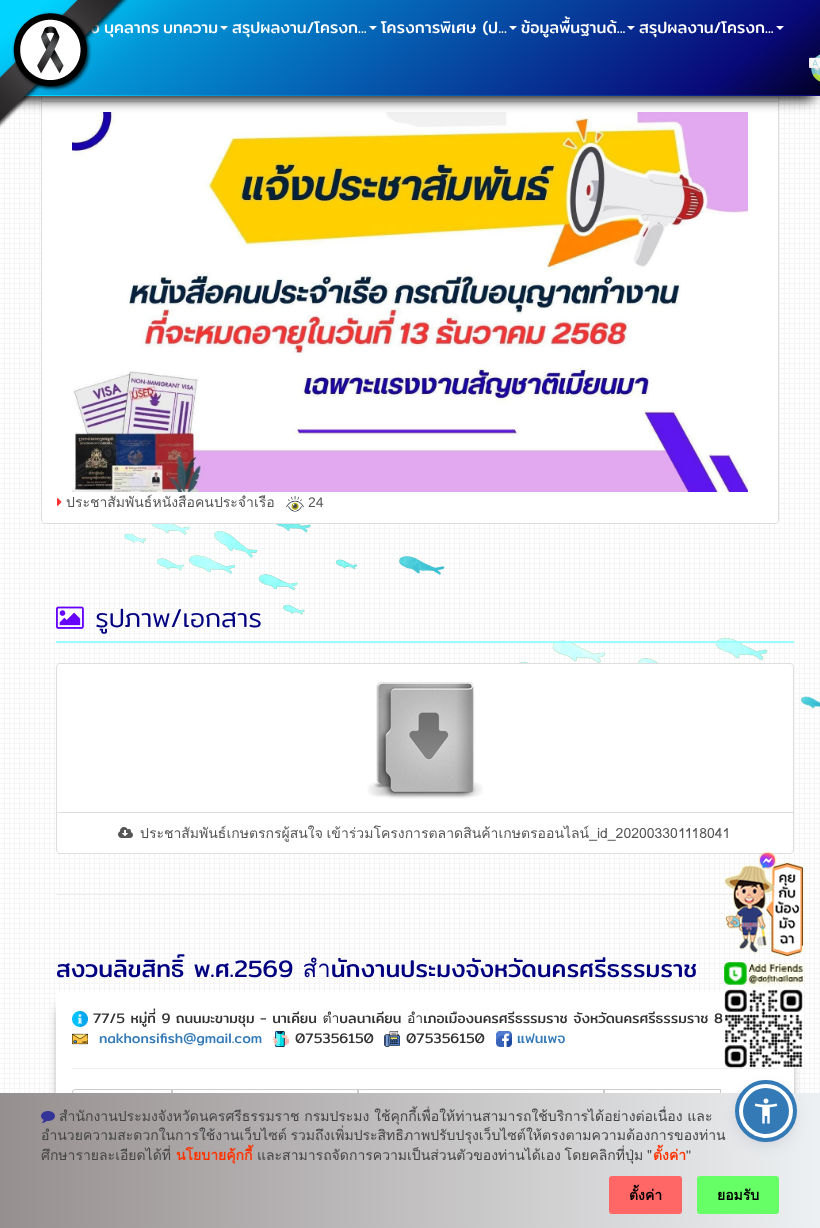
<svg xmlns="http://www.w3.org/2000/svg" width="820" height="1228">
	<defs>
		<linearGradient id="g1" gradientUnits="userSpaceOnUse" x1="596" y1="277" x2="224" y2="-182"><stop offset="0" stop-color="#020024" /><stop offset="0.13" stop-color="#090979" /><stop offset="0.79" stop-color="#0396D6" /><stop offset="0.95" stop-color="#00D4FF" /></linearGradient>
		<linearGradient id="g2" gradientUnits="userSpaceOnUse" x1="596" y1="372" x2="224" y2="-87"><stop offset="0" stop-color="#020024" /><stop offset="0.13" stop-color="#090979" /><stop offset="0.79" stop-color="#0396D6" /><stop offset="0.95" stop-color="#00D4FF" /></linearGradient>
		<linearGradient id="g3" gradientUnits="userSpaceOnUse" x1="0" y1="1161" x2="820" y2="1161"><stop offset="0" stop-color="#968F8F" /><stop offset="1" stop-color="#EDF0F2" /></linearGradient>
	</defs>
	<rect width="100%" height="100%" fill="#FFFFFF" />
	<image x="0" y="96" width="820" height="997" href="assets/img1.png" />
	<rect x="42" y="96" width="736" height="5" fill="#FFFFFF" />
	<rect x="41.5" y="-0.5" width="737" height="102" fill="none" stroke="#DDDDDD" />
	<path d="M41.5 101.5H778.5V520C778.5 522 777 523.5 775 523.5H45C43 523.5 41.5 522 41.5 520Z" fill="#FFFFFF" stroke="#DDDDDD" />
	<image x="72" y="112" width="676" height="380" href="assets/img5.png" />
	<rect x="7" y="17" width="806" height="82" fill="#000000" filter="blur(6.5px)" />
	<rect x="0" y="0" width="820" height="95" fill="url(#g1)" />
	<rect x="24" y="95" width="796" height="1" fill="url(#g2)" />
	<g font-family="Mitr" font-size="16" fill="#FFFFFF">
		<text x="90" y="33">ง</text>
		<text x="104" y="33">บุคลากร</text>
	</g>
	<image x="0" y="0" width="128" height="128" href="assets/img2.png" />
	<text x="232" y="33" font-family="Mitr" font-size="16" fill="#FFFFFF">สรุปผลงาน/โครงก...</text>
	<path d="M369 26H377L373 30Z" fill="#FFFFFF" />
	<text x="381" y="33" font-family="Mitr" font-size="16" fill="#FFFFFF">โครงการพิเศษ (ป...</text>
	<path d="M509 26H517L513 30Z" fill="#FFFFFF" />
	<text x="521" y="33" font-family="Mitr" font-size="16" fill="#FFFFFF">ข้อมูลพื้นฐานด้...</text>
	<path d="M627 26H635L631 30Z" fill="#FFFFFF" />
	<text x="639" y="33" font-family="Mitr" font-size="16" fill="#FFFFFF">สรุปผลงาน/โครงก...</text>
	<path d="M776 26H784L780 30Z" fill="#FFFFFF" />
	<text x="163" y="33" font-family="Mitr" font-size="16" fill="#FFFFFF">บทความ</text>
	<path d="M220 26H228L224 30Z" fill="#FFFFFF" />
	<image x="809" y="54" width="11" height="28" href="assets/img3.png" />
	<rect x="63" y="1009" width="724" height="152" fill="#000000" filter="blur(6.5px)" />
	<rect x="56" y="992" width="738" height="166" rx="4" fill="#FFFFFF" />
	<path d="M75 1089.5H171.5V1110.5H75C73.5 1110.5 72.5 1109.5 72.5 1108V1092C72.5 1090.5 73.5 1089.5 75 1089.5Z" fill="none" stroke="#CCCCCC" />
	<rect x="172.5" y="1089.5" width="185" height="21" fill="none" stroke="#CCCCCC" />
	<rect x="358.5" y="1089.5" width="245" height="21" fill="none" stroke="#CCCCCC" />
	<rect x="604.5" y="1089.5" width="116" height="21" fill="none" stroke="#CCCCCC" />
	<rect x="0" y="1093" width="820" height="135" fill="url(#g3)" />
	<image x="41" y="1111" width="14" height="12" href="assets/img4.png" />
	<g font-family="Loma" font-size="14" fill="#444444">
		<text x="59" y="1121">สำนักงานประมงจังหวัดนครศรีธรรมราช กรมประมง ใช้คุกกี้เพื่อให้ท่านสามารถใช้บริการได้อย่างต่อเนื่อง และ</text>
		<text x="41" y="1140" word-spacing="-1">อำนวยความสะดวกในการใช้งานเว็บไซต์ รวมถึงเพิ่มประสิทธิภาพปรับปรุงเว็บไซต์ให้ตรงตามความต้องการของท่าน</text>
		<text x="41" y="1160">ศึกษารายละเอียดได้ที่</text>
	</g>
	<text x="176" y="1160" font-family="Loma" font-size="14" font-weight="700" fill="#FF3300">นโยบายคุ้กกี้</text>
	<text x="257" y="1160" word-spacing="-1" font-family="Loma" font-size="14" fill="#444444">และสามารถจัดการความเป็นส่วนตัวของท่านได้เอง โดยคลิกที่ปุ่ม "</text>
	<text x="653" y="1160" font-family="Loma" font-size="14" font-weight="700" fill="#FF3300">ตั้งค่า</text>
	<text x="686" y="1160" font-family="Liberation Sans" font-size="14" fill="#444444">"</text>
	<rect x="609" y="1176" width="73" height="38" rx="3" fill="#FF6666" />
	<text x="629" y="1200" font-family="Loma" font-size="14" font-weight="700" fill="#000000">ตั้งค่า</text>
	<rect x="697" y="1176" width="82" height="38" rx="3" fill="#66FF66" />
	<text x="717" y="1200" font-family="Loma" font-size="14" font-weight="700" fill="#000000">ยอมรับ</text>
	<image x="57" y="498" width="5" height="8" href="assets/img6.png" />
	<text x="66" y="507" font-family="Loma" font-size="14" fill="#555555">ประชาสัมพันธ์หนังสือคนประจำเรือ</text>
	<image x="286" y="496" width="18" height="16" href="assets/img7.png" />
	<text x="308" y="507" font-family="Liberation Sans" font-size="14" fill="#555555">24</text>
	<rect x="56" y="641" width="738" height="2" fill="#99FFFF" />
	<image x="56" y="606" width="28" height="23" href="assets/img8.png" />
	<text x="95" y="627" font-family="Mitr" font-size="26" font-weight="300" fill="#000080">รูปภาพ/เอกสาร</text>
	<path d="M60 663.5H790C792 663.5 793.5 665 793.5 667V812.5H56.5V667C56.5 665 58 663.5 60 663.5Z" fill="#FFFFFF" stroke="#DDDDDD" />
	<image x="367" y="682" width="116" height="117" href="assets/img9.png" />
	<path d="M56.5 812.5H793.5V850C793.5 852 792 853.5 790 853.5H60C58 853.5 56.5 852 56.5 850Z" fill="#FFFFFF" stroke="#DDDDDD" />
	<image x="118" y="827" width="15" height="11" href="assets/img10.png" />
	<text x="140" y="838" word-spacing="-1" font-family="Loma" font-size="14" fill="#555555">ประชาสัมพันธ์เกษตรกรผู้สนใจ เข้าร่วมโครงการตลาดสินค้าเกษตรออนไลน์_id_202003301118041</text>
	<rect x="56" y="894" width="718" height="1" fill="#EEEEEE" />
	<image x="724" y="851" width="80" height="106" href="assets/img11.png" />
	<image x="724" y="962" width="80" height="106" href="assets/img12.png" />
	<text x="56" y="977" font-family="Mitr" font-size="24" fill="#000080">สงวนลิขสิทธิ์ พ.ศ.2569 สำนักงานประมงจังหวัดนครศรีธรรมราช</text>
	<image x="72" y="1011" width="16" height="16" href="assets/img13.png" />
	<text x="93" y="1023" font-family="Mitr" font-size="14" fill="#333333">77/5 หมู่ที่ 9 ถนนมะขามชุม - นาเคียน ตำบลนาเคียน อำเภอเมืองนครศรีธรรมราช จังหวัดนครศรีธรรมราช 8</text>
	<image x="72" y="1033" width="16" height="12" href="assets/img14.png" />
	<text x="99" y="1043" font-family="Mitr" font-size="14" fill="#337AB7">nakhonsifish@gmail.com</text>
	<image x="273" y="1031" width="16" height="16" href="assets/img15.png" />
	<text x="295" y="1043" font-family="Mitr" font-size="14" fill="#333333">075356150</text>
	<image x="384" y="1031" width="16" height="16" href="assets/img16.png" />
	<text x="406" y="1043" font-family="Mitr" font-size="14" fill="#333333">075356150</text>
	<image x="496" y="1031" width="16" height="16" href="assets/img17.png" />
	<text x="517" y="1043" font-family="Mitr" font-size="14" fill="#337AB7">แฟนเพจ</text>
	<rect x="72" y="1068" width="706" height="1" fill="#EEEEEE" />
	<rect x="739" y="1086" width="54" height="54" rx="27" fill="#5D6494" fill-opacity="0.2" filter="blur(2px)" />
	<rect x="739" y="1089" width="54" height="54" rx="27" fill="#252C61" fill-opacity="0.15" filter="blur(7.5px)" />
	<circle cx="766" cy="1111" r="25" fill="#337AB7" stroke="#FFFFFF" stroke-width="4" />
	<circle cx="766" cy="1111" r="29" fill="none" stroke="#337AB7" stroke-width="4" />
	<image x="754" y="1098" width="24" height="26" href="assets/img18.png" />
</svg>
